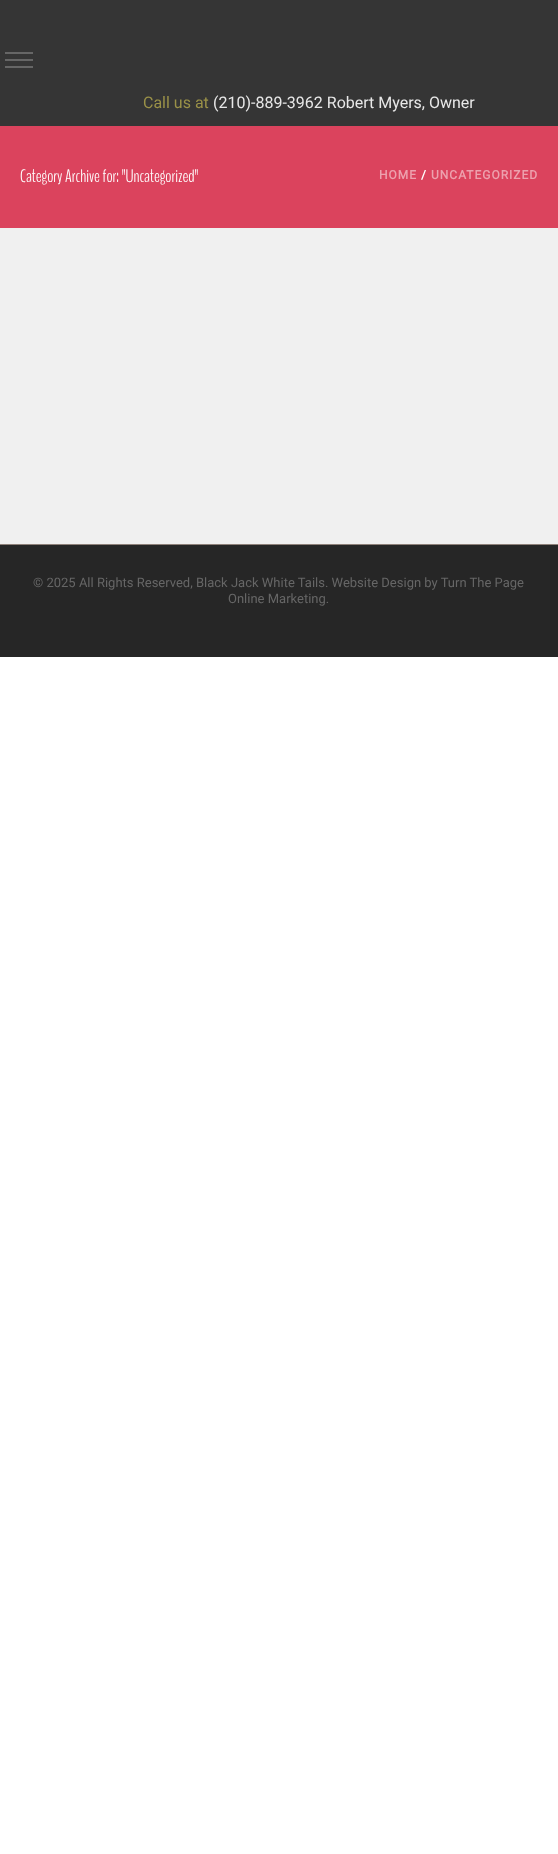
<svg xmlns="http://www.w3.org/2000/svg" width="558" height="1854">
	<rect width="100%" height="100%" fill="#FFFFFF" />
	<rect x="0" y="0" width="558" height="126" fill="#353535" />
	<rect x="5" y="52" width="28" height="2" fill="#666666" />
	<rect x="5" y="59" width="28" height="2" fill="#666666" />
	<rect x="5" y="66" width="28" height="2" fill="#666666" />
	<text x="143" y="108" font-family="Roboto" font-size="16" fill="#9A9148">Call us at</text>
	<text x="213" y="108" font-family="Roboto" font-size="16" fill="#E8E8E8">(210)-889-3962 Robert Myers, Owner</text>
	<rect x="0" y="126" width="558" height="102" fill="#DB435D" />
	<text x="20" y="182" font-family="BenchNine" font-size="18" font-weight="300" fill="#FFFFFF">Category Archive for: "Uncategorized"</text>
	<text x="379" y="179" font-family="Roboto" font-size="12" font-weight="700" letter-spacing="1" fill="#EDA1AE">HOME</text>
	<text x="421" y="179" font-family="Roboto" font-size="12" font-weight="700" letter-spacing="1" fill="#FFFFFF">/</text>
	<text x="431" y="179" font-family="Roboto" font-size="12" font-weight="700" letter-spacing="1" fill="#EDA1AE">UNCATEGORIZED</text>
	<rect x="0" y="228" width="558" height="316" fill="#F0F0F0" />
	<rect x="0" y="545" width="558" height="112" fill="#262626" />
	<rect x="0" y="544" width="558" height="1" fill="#8E817A" />
	<g font-family="Roboto" font-size="13" fill="#666666">
		<text x="33" y="587">© 2025 All Rights Reserved, Black Jack White Tails. Website Design by Turn The Page</text>
		<text x="228" y="603">Online Marketing.</text>
	</g>
</svg>
